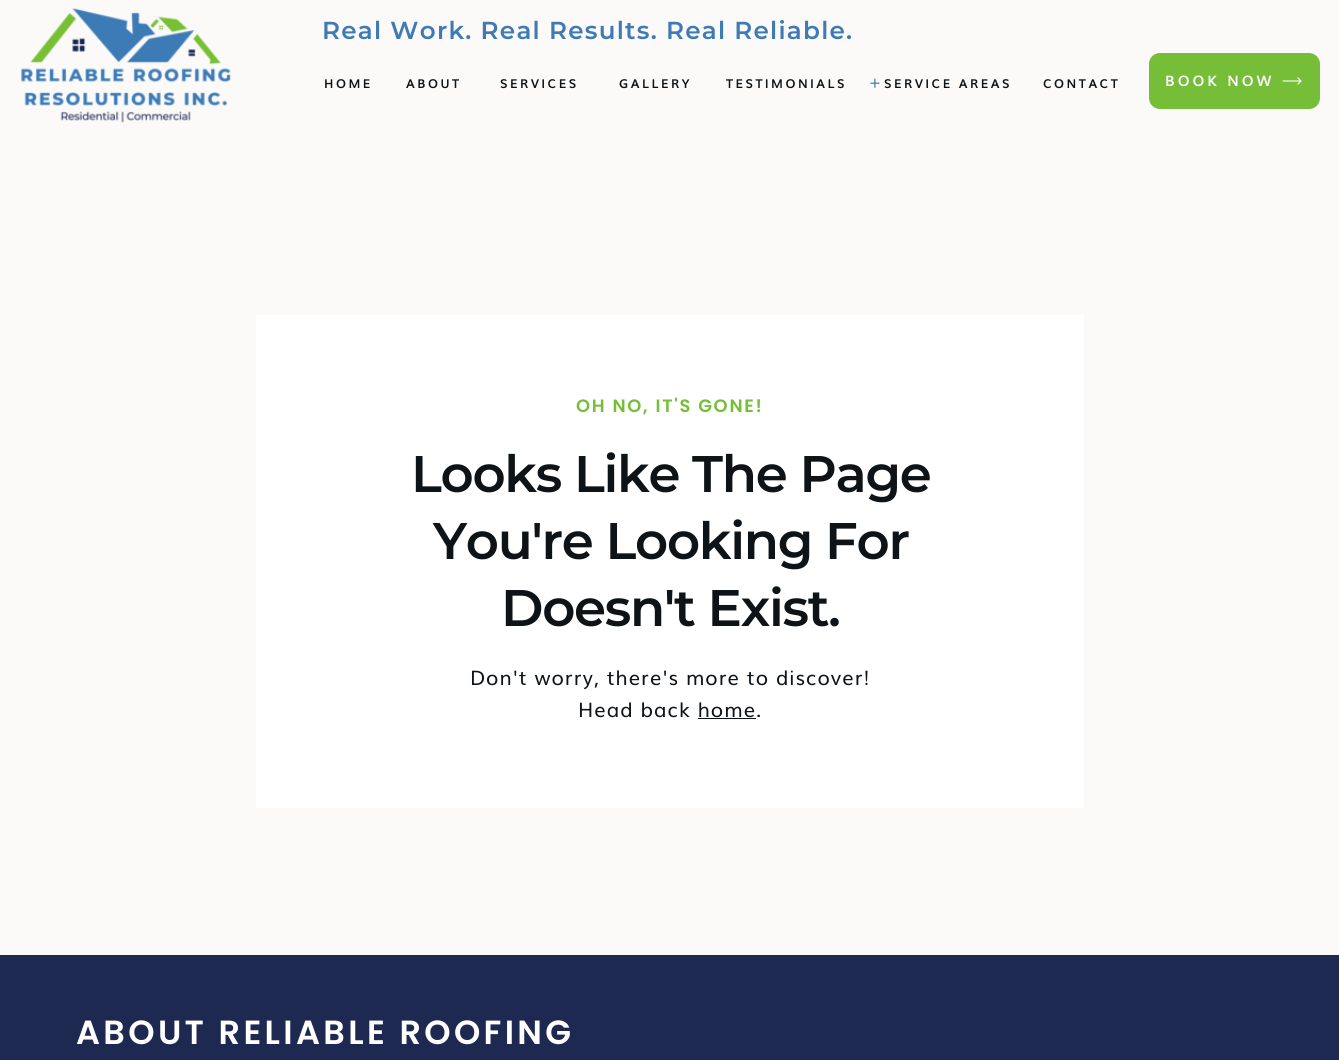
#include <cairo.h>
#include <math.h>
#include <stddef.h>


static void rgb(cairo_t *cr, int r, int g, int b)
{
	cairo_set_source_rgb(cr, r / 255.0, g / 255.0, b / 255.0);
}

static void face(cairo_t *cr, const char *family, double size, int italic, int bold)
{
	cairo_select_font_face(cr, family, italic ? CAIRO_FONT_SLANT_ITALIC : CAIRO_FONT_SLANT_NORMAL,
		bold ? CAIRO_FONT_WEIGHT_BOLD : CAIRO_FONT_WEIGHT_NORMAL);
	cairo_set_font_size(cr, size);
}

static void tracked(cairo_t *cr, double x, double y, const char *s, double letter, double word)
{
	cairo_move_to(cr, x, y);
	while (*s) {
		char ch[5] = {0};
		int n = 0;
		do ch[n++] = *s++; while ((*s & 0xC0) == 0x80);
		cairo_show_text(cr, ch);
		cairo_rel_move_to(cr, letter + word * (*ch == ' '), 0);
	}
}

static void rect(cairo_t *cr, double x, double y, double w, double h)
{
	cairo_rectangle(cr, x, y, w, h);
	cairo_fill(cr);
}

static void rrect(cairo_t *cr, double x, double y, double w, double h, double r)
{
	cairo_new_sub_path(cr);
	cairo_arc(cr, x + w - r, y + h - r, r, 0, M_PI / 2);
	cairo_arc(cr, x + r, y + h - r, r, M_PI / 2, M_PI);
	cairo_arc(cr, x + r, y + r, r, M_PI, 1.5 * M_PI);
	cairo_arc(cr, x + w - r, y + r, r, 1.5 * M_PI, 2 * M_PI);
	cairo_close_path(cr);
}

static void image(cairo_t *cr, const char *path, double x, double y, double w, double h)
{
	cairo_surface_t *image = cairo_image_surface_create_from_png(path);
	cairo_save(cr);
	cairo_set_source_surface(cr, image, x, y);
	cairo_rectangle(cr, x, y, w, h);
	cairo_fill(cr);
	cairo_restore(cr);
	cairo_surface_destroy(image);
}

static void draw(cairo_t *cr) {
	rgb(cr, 251, 250, 248);
	cairo_paint(cr);
	image(cr, "image0.png", 21, 7, 210, 116);
	face(cr, "Montserrat Thin", 24.6, 0, 0);
	rgb(cr, 62, 122, 181);
	tracked(cr, 322, 39, "Real Work. Real Results. Real Reliable.", 1.25, 0);
	rgb(cr, 118, 190, 55);
	rrect(cr, 1149, 53, 171, 56, 11);
	cairo_fill(cr);
	face(cr, "Muli", 12.25, 0, 1);
	rgb(cr, 13, 19, 23);
	tracked(cr, 324, 88, "HOME", 2.5, 0);
	tracked(cr, 406, 88, "ABOUT", 2.5, 0);
	tracked(cr, 500, 88, "SERVICES", 2.5, 0);
	tracked(cr, 619, 88, "GALLERY", 2.5, 0);
	tracked(cr, 726, 88, "TESTIMONIALS", 2.5, 0);
	image(cr, "image1.png", 870, 78, 10, 10);
	tracked(cr, 884, 88, "SERVICE AREAS", 2.5, 0);
	tracked(cr, 1043, 88, "CONTACT", 2.5, 0);
	face(cr, "Muli", 14.5, 0, 1);
	rgb(cr, 255, 255, 255);
	tracked(cr, 1165, 86, "BOOK NOW", 3, 0);
	image(cr, "image2.png", 1282, 77, 20, 8);
	rect(cr, 256, 315, 828, 493);
	face(cr, "Poppins SemiBold", 17.9, 0, 0);
	rgb(cr, 118, 190, 55);
	tracked(cr, 576, 412, "OH NO, IT'S GONE!", 1.75, 0);
	face(cr, "Montserrat Thin", 51.4, 0, 0);
	rgb(cr, 13, 19, 23);
	tracked(cr, 411, 492, "Looks Like The Page", -1.25, 0);
	tracked(cr, 433, 559, "You're Looking For", -1.25, 0);
	tracked(cr, 501, 626, "Doesn't Exist.", -1.25, 0);
	face(cr, "Muli", 20.1, 0, 0);
	tracked(cr, 470, 685, "Don't worry, there's more to discover!", 1, 0);
	tracked(cr, 578, 717, "Head back home.", 1, 0);
	rect(cr, 698, 718, 58, 1);
	rgb(cr, 30, 41, 82);
	rect(cr, 0, 955, 1339, 105);
	face(cr, "Poppins SemiBold", 33.5, 0, 0);
	rgb(cr, 255, 255, 255);
	tracked(cr, 76, 1044, "ABOUT RELIABLE ROOFING", 3.35, 0);
}

int main(void) {
	cairo_surface_t *surface = cairo_image_surface_create(CAIRO_FORMAT_RGB24, 1339, 1060);
	cairo_t *cr = cairo_create(surface);
	cairo_font_options_t *options = cairo_font_options_create();
	cairo_font_options_set_hint_metrics(options, CAIRO_HINT_METRICS_OFF);
	cairo_font_options_set_hint_style(options, CAIRO_HINT_STYLE_NONE);
	cairo_set_font_options(cr, options);
	cairo_set_miter_limit(cr, 4);
	draw(cr);
	cairo_surface_write_to_png(surface, "render.png");
	cairo_font_options_destroy(options);
	cairo_destroy(cr);
	cairo_surface_destroy(surface);
	return 0;
}
